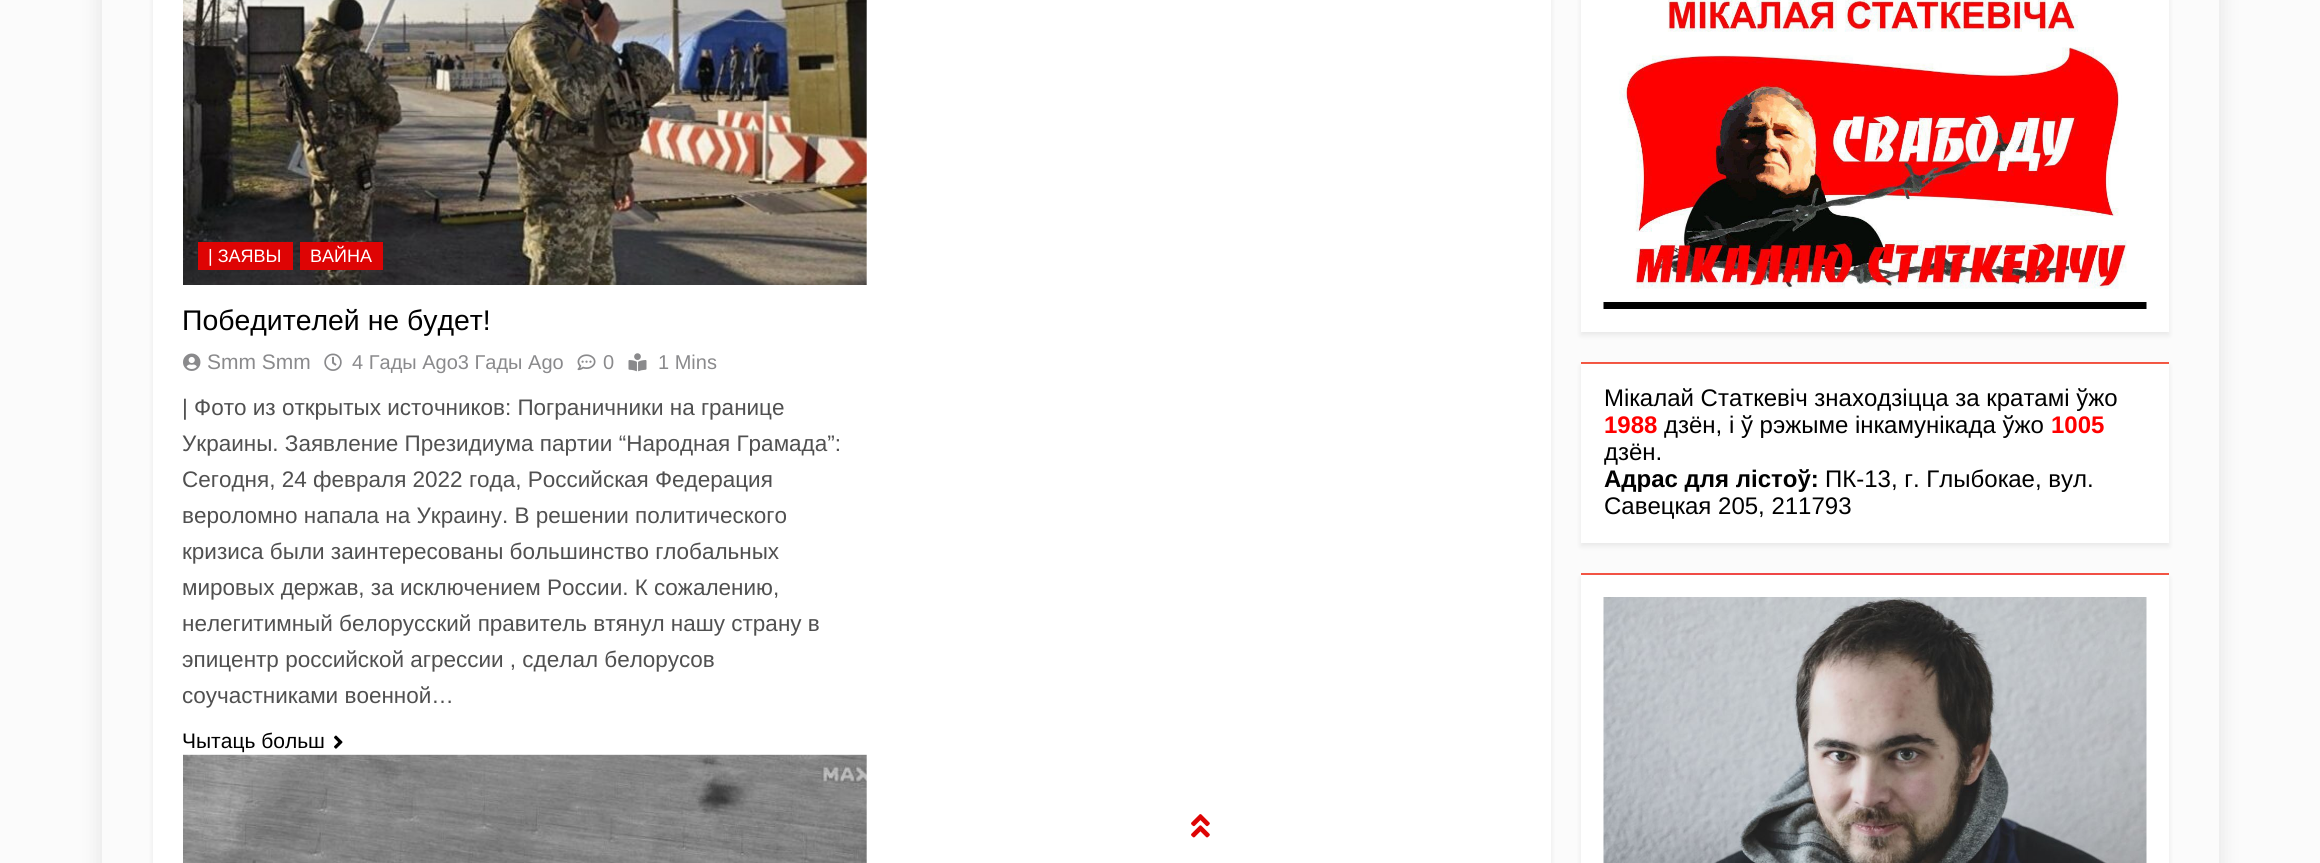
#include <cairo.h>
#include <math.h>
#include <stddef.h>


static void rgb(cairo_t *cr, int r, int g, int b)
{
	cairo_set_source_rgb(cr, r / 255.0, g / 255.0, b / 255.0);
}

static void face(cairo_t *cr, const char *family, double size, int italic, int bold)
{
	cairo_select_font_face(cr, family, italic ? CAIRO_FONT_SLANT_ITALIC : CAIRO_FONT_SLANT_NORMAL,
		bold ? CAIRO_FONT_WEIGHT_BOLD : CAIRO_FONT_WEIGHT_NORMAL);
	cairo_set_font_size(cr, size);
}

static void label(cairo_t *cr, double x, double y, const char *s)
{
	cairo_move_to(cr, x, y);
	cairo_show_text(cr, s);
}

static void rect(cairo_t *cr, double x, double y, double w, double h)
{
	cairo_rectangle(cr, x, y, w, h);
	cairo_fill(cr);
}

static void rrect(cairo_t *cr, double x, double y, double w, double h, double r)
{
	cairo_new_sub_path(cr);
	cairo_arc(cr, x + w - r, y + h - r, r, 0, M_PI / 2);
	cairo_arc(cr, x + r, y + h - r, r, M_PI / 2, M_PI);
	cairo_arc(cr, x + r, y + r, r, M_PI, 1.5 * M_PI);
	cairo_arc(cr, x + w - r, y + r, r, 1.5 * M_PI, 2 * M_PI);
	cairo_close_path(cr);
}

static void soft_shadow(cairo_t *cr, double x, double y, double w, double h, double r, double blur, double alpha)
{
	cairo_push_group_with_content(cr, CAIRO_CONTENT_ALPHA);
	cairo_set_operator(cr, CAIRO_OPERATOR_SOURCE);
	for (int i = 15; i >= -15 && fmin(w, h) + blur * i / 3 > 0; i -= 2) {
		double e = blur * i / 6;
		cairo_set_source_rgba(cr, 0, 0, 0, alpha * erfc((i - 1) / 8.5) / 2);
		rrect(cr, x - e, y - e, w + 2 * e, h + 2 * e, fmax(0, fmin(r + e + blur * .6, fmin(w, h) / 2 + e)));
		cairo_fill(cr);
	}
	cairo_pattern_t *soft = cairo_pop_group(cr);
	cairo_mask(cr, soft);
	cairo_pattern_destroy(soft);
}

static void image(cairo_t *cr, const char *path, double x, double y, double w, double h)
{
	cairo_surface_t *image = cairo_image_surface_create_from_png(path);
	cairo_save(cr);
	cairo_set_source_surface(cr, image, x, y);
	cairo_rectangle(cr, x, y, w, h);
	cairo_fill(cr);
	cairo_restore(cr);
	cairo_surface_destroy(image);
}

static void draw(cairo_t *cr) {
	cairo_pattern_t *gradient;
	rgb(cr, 251, 251, 251);
	cairo_paint(cr);
	cairo_save(cr);
	cairo_set_fill_rule(cr, CAIRO_FILL_RULE_EVEN_ODD);
	cairo_new_path(cr);
	cairo_move_to(cr, 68, 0);
	cairo_line_to(cr, 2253, 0);
	cairo_line_to(cr, 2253, 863);
	cairo_line_to(cr, 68, 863);
	cairo_close_path(cr);
	cairo_move_to(cr, 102, -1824);
	cairo_line_to(cr, 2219, -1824);
	cairo_line_to(cr, 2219, 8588);
	cairo_line_to(cr, 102, 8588);
	cairo_close_path(cr);
	cairo_clip(cr);
	rgb(cr, 0, 0, 0);
	soft_shadow(cr, 102, -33, 2117, 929, 0, 11, 0.1);
	cairo_restore(cr);
	rgb(cr, 0, 0, 0);
	soft_shadow(cr, 153, -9, 1398, 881, 0, 3, 0.08);
	rgb(cr, 255, 255, 255);
	rect(cr, 153, 0, 1398, 863);
	image(cr, "image0.png", 183, 0, 684, 285);
	rgb(cr, 222, 4, 4);
	rect(cr, 198, 242, 95, 28);
	face(cr, "Liberation Sans", 18, 0, 0);
	rgb(cr, 255, 255, 255);
	label(cr, 208, 262, "| ЗАЯВЫ");
	rgb(cr, 222, 4, 4);
	rect(cr, 300, 242, 83, 28);
	rgb(cr, 255, 255, 255);
	label(cr, 310, 262, "ВАЙНА");
	face(cr, "Liberation Sans", 28.4, 0, 0);
	rgb(cr, 0, 0, 0);
	label(cr, 182, 330, "Победителей не будет!");
	image(cr, "image1.png", 183, 353, 18, 18);
	face(cr, "Liberation Sans", 21, 0, 0);
	rgb(cr, 138, 138, 140);
	label(cr, 207, 369, "Smm Smm");
	image(cr, "image2.png", 324, 353, 18, 18);
	face(cr, "Liberation Sans", 20, 0, 0);
	label(cr, 352, 369, "4 Гады Ago3 Гады Ago");
	image(cr, "image3.png", 577, 354, 19, 17);
	label(cr, 603, 369, "0");
	image(cr, "image4.png", 628, 353, 19, 19);
	label(cr, 658, 369, "1 Mins");
	face(cr, "Liberation Sans", 22.5, 0, 0);
	rgb(cr, 80, 80, 80);
	label(cr, 182, 415, "| Фото из открытых источников: Пограничники на границе");
	label(cr, 182, 451, "Украины. Заявление Президиума партии “Народная Грамада”:");
	label(cr, 182, 487, "Сегодня, 24 февраля 2022 года, Российская Федерация");
	label(cr, 182, 523, "вероломно напала на Украину. В решении политического");
	label(cr, 182, 559, "кризиса были заинтересованы большинство глобальных");
	label(cr, 182, 595, "мировых держав, за исключением России. К сожалению,");
	label(cr, 182, 631, "нелегитимный белорусский правитель втянул нашу страну в");
	label(cr, 182, 667, "эпицентр российской агрессии , сделал белорусов");
	label(cr, 182, 703, "соучастниками военной…");
	face(cr, "Liberation Sans", 21, 0, 0);
	rgb(cr, 0, 0, 0);
	label(cr, 182, 748, "Чытаць больш");
	image(cr, "image5.png", 334, 735, 9, 14);
	image(cr, "image6.png", 183, 754, 684, 109);
	rgb(cr, 0, 0, 0);
	soft_shadow(cr, 1581, -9, 588, 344, 0, 3, 0.08);
	rgb(cr, 255, 255, 255);
	rect(cr, 1581, 0, 588, 332);
	image(cr, "image7.png", 1603, 0, 544, 309);
	rgb(cr, 0, 0, 0);
	soft_shadow(cr, 1581, 366, 588, 180, 0, 3, 0.08);
	rgb(cr, 255, 255, 255);
	rect(cr, 1581, 364, 588, 179);
	gradient = cairo_pattern_create_radial(0, 0, 0, 0, 0, 1);
	cairo_pattern_set_matrix(gradient, &(cairo_matrix_t){1.0 / 416, 0, 0, 1.0 / 1.1, -1.0 * 1875 / 416, -1.0 * 362 / 1.1});
	cairo_pattern_add_color_stop_rgba(gradient, 0.1, 0.922, 0.2, 0.286, 1);
	cairo_pattern_add_color_stop_rgba(gradient, 1, 0.957, 0.361, 0.263, 1);
	cairo_set_source(cr, gradient);
	cairo_pattern_destroy(gradient);
	rect(cr, 1581, 362, 588, 2);
	face(cr, "Liberation Sans", 24, 0, 0);
	rgb(cr, 0, 0, 0);
	label(cr, 1604, 406, "Мікалай Статкевіч знаходзіцца за кратамі ўжо");
	face(cr, "Liberation Sans", 24, 0, 1);
	rgb(cr, 255, 0, 0);
	label(cr, 1604, 433, "1988");
	face(cr, "Liberation Sans", 24, 0, 0);
	rgb(cr, 0, 0, 0);
	label(cr, 1664, 433, "дзён, і ў рэжыме інкамунікада ўжо");
	face(cr, "Liberation Sans", 24, 0, 1);
	rgb(cr, 255, 0, 0);
	label(cr, 2051, 433, "1005");
	face(cr, "Liberation Sans", 24, 0, 0);
	rgb(cr, 0, 0, 0);
	label(cr, 1604, 460, "дзён.");
	face(cr, "Liberation Sans", 24, 0, 1);
	label(cr, 1604, 487, "Адрас для лістоў:");
	face(cr, "Liberation Sans", 24, 0, 0);
	label(cr, 1825, 487, "ПК-13, г. Глыбокае, вул.");
	label(cr, 1604, 514, "Савецкая 205, 211793");
	rgb(cr, 0, 0, 0);
	soft_shadow(cr, 1581, 578, 588, 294, 0, 3, 0.08);
	rgb(cr, 255, 255, 255);
	rect(cr, 1581, 575, 588, 288);
	gradient = cairo_pattern_create_radial(0, 0, 0, 0, 0, 1);
	cairo_pattern_set_matrix(gradient, &(cairo_matrix_t){1.0 / 416, 0, 0, 1.0 / 1.1, -1.0 * 1875 / 416, -1.0 * 574 / 1.1});
	cairo_pattern_add_color_stop_rgba(gradient, 0.1, 0.922, 0.2, 0.286, 1);
	cairo_pattern_add_color_stop_rgba(gradient, 1, 0.957, 0.361, 0.263, 1);
	cairo_set_source(cr, gradient);
	cairo_pattern_destroy(gradient);
	rect(cr, 1581, 573, 588, 2);
	image(cr, "image8.png", 1603, 597, 544, 266);
	image(cr, "image9.png", 1191, 814, 19, 24);
}

int main(void) {
	cairo_surface_t *surface = cairo_image_surface_create(CAIRO_FORMAT_RGB24, 2320, 863);
	cairo_t *cr = cairo_create(surface);
	cairo_font_options_t *options = cairo_font_options_create();
	cairo_font_options_set_hint_metrics(options, CAIRO_HINT_METRICS_OFF);
	cairo_font_options_set_hint_style(options, CAIRO_HINT_STYLE_NONE);
	cairo_set_font_options(cr, options);
	cairo_set_miter_limit(cr, 4);
	draw(cr);
	cairo_surface_write_to_png(surface, "render.png");
	cairo_font_options_destroy(options);
	cairo_destroy(cr);
	cairo_surface_destroy(surface);
	return 0;
}
